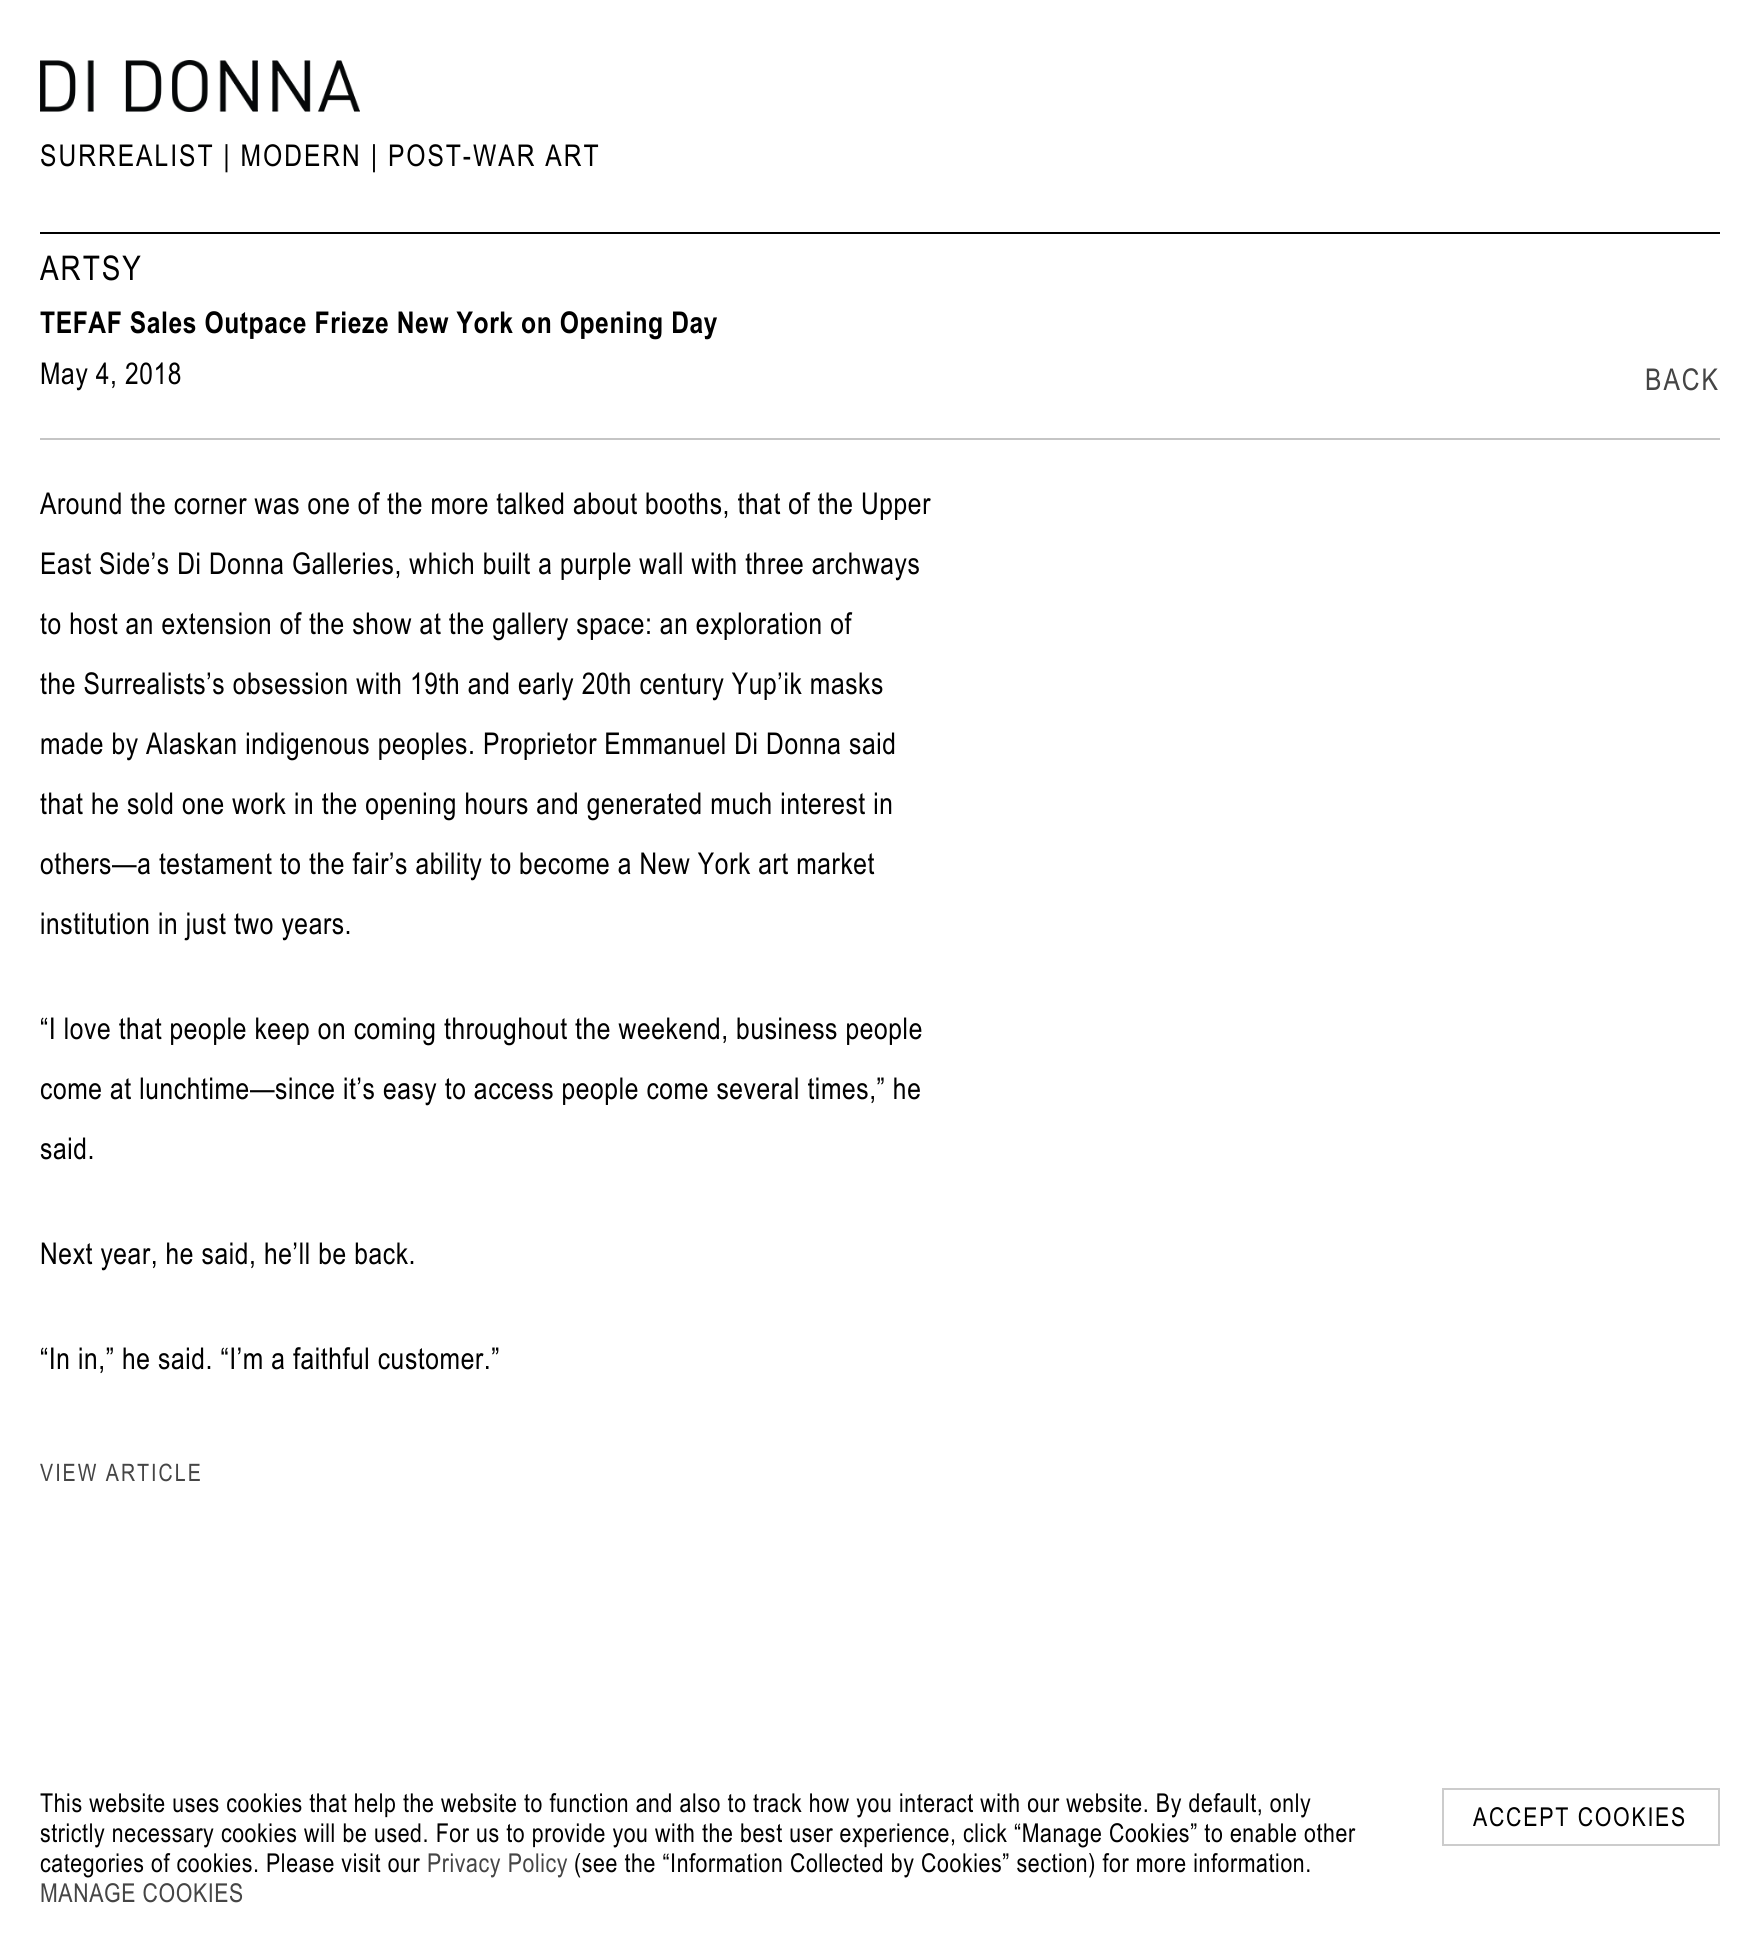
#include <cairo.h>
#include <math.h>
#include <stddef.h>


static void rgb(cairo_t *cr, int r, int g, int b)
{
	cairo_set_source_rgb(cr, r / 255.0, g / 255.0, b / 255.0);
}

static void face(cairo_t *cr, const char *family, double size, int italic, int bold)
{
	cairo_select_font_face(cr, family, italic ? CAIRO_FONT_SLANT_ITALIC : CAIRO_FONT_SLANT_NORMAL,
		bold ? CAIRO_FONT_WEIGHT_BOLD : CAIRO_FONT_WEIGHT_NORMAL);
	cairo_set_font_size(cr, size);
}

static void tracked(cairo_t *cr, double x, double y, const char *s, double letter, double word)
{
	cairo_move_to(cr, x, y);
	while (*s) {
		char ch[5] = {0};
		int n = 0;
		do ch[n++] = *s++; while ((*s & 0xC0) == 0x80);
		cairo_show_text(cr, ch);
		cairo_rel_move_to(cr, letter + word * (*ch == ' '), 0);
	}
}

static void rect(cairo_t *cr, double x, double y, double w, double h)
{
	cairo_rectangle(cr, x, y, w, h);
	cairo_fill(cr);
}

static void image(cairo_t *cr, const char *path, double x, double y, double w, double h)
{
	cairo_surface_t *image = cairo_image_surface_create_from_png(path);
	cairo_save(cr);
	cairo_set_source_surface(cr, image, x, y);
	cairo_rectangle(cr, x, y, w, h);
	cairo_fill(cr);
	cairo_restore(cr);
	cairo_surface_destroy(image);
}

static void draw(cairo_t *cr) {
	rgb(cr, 255, 255, 255);
	cairo_paint(cr);
	image(cr, "image0.png", 40, 60, 320, 52);
	face(cr, "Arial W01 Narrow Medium", 30, 0, 0);
	rgb(cr, 0, 0, 0);
	tracked(cr, 40, 166, "SURREALIST | MODERN | POST-WAR ART", 2, 0);
	rect(cr, 40, 232, 1680, 2);
	rgb(cr, 197, 197, 197);
	rect(cr, 40, 438, 1680, 2);
	face(cr, "Arial W01 Narrow Medium", 34, 0, 0);
	rgb(cr, 0, 0, 0);
	tracked(cr, 40, 280, "ARTSY", 2, 0);
	face(cr, "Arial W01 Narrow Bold", 30, 0, 1);
	tracked(cr, 40, 333, "TEFAF Sales Outpace Frieze New York on Opening Day", 0.6, 0);
	face(cr, "Arial W01 Narrow Medium", 30, 0, 0);
	tracked(cr, 40, 384, "May 4, 2018", 0.6, 0);
	rgb(cr, 69, 69, 69);
	tracked(cr, 1645, 390, "BACK", 2, 0);
	rgb(cr, 0, 0, 0);
	tracked(cr, 40, 514, "Around the corner was one of the more talked about booths, that of the Upper", 0.6, 0);
	tracked(cr, 40, 574, "East Side’s Di Donna Galleries, which built a purple wall with three archways", 0.6, 0);
	tracked(cr, 40, 634, "to host an extension of the show at the gallery space: an exploration of", 0.6, 0);
	tracked(cr, 40, 694, "the Surrealists’s obsession with 19th and early 20th century Yup’ik masks", 0.6, 0);
	tracked(cr, 40, 754, "made by Alaskan indigenous peoples. Proprietor Emmanuel Di Donna said", 0.6, 0);
	tracked(cr, 40, 814, "that he sold one work in the opening hours and generated much interest in", 0.6, 0);
	tracked(cr, 40, 874, "others—a testament to the fair’s ability to become a New York art market", 0.6, 0);
	tracked(cr, 40, 934, "institution in just two years.", 0.6, 0);
	tracked(cr, 40, 1039, "“I love that people keep on coming throughout the weekend, business people", 0.6, 0);
	tracked(cr, 40, 1099, "come at lunchtime—since it’s easy to access people come several times,” he", 0.6, 0);
	tracked(cr, 40, 1159, "said.", 0.6, 0);
	tracked(cr, 40, 1264, "Next year, he said, he’ll be back.", 0.6, 0);
	tracked(cr, 40, 1369, "“In in,” he said. “I’m a faithful customer.”", 0.6, 0);
	face(cr, "Arial W01 Narrow Medium", 24, 0, 0);
	rgb(cr, 69, 69, 69);
	tracked(cr, 40, 1481, "VIEW ARTICLE", 2, 0);
	face(cr, "Arial W01 Narrow Medium", 26, 0, 0);
	rgb(cr, 0, 0, 0);
	tracked(cr, 40, 1812, "This website uses cookies that help the website to function and also to track how you interact with our website. By default, only", 0.6, 0);
	tracked(cr, 40, 1842, "strictly necessary cookies will be used. For us to provide you with the best user experience, click “Manage Cookies” to enable other", 0.6, 0);
	tracked(cr, 40, 1872, "categories of cookies. Please visit our", 0.6, 0);
	rgb(cr, 69, 69, 69);
	tracked(cr, 427, 1872, "Privacy Policy", 0.6, 0);
	rgb(cr, 0, 0, 0);
	tracked(cr, 574, 1872, "(see the “Information Collected by Cookies” section) for more information.", 0.6, 0);
	rgb(cr, 69, 69, 69);
	tracked(cr, 40, 1902, "MANAGE COOKIES", 0.6, 0);
	cairo_rectangle(cr, 1443, 1789, 276, 56);
	rgb(cr, 204, 204, 204);
	cairo_stroke(cr);
	rgb(cr, 0, 0, 0);
	tracked(cr, 1473, 1826, "ACCEPT COOKIES", 1.75, 0);
}

int main(void) {
	cairo_surface_t *surface = cairo_image_surface_create(CAIRO_FORMAT_RGB24, 1760, 1947);
	cairo_t *cr = cairo_create(surface);
	cairo_font_options_t *options = cairo_font_options_create();
	cairo_font_options_set_hint_metrics(options, CAIRO_HINT_METRICS_OFF);
	cairo_font_options_set_hint_style(options, CAIRO_HINT_STYLE_NONE);
	cairo_set_font_options(cr, options);
	cairo_set_miter_limit(cr, 4);
	draw(cr);
	cairo_surface_write_to_png(surface, "render.png");
	cairo_font_options_destroy(options);
	cairo_destroy(cr);
	cairo_surface_destroy(surface);
	return 0;
}
